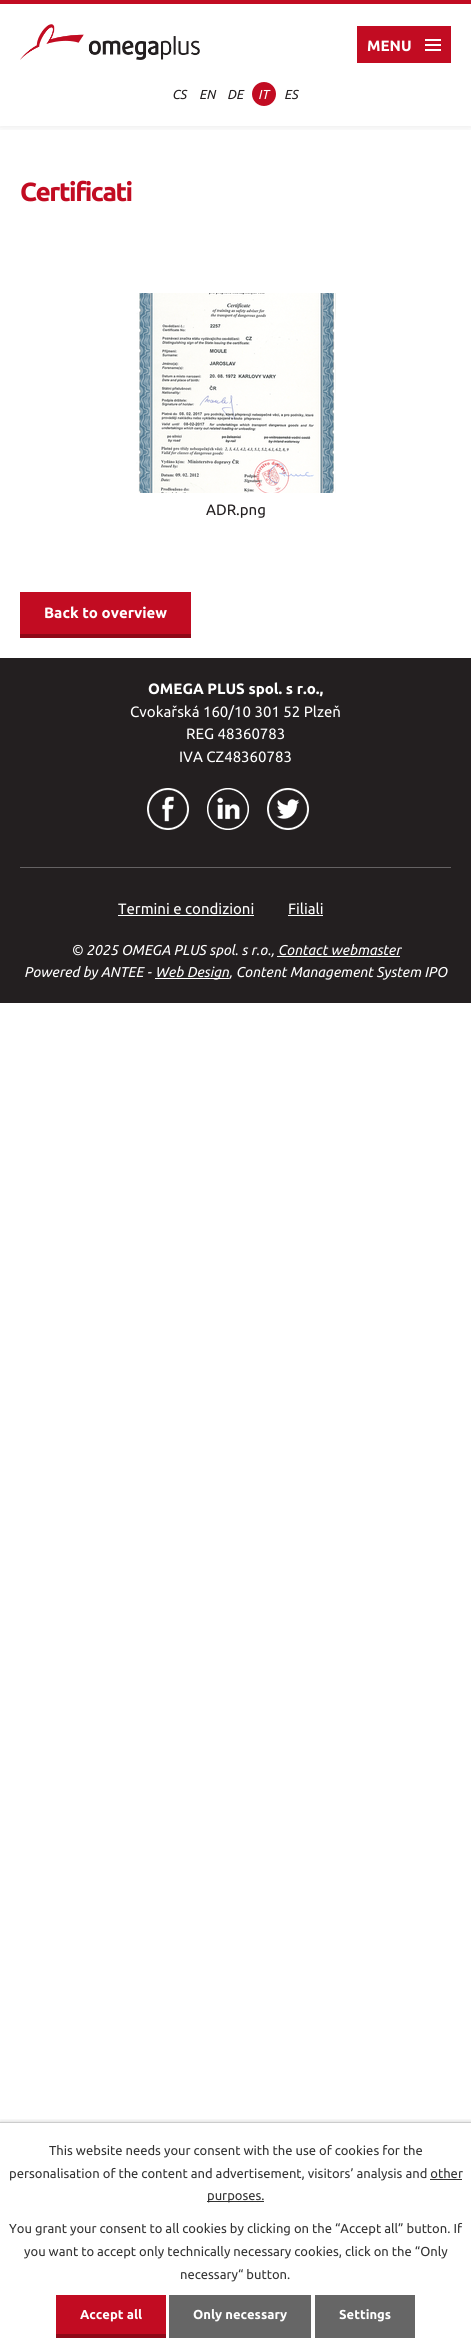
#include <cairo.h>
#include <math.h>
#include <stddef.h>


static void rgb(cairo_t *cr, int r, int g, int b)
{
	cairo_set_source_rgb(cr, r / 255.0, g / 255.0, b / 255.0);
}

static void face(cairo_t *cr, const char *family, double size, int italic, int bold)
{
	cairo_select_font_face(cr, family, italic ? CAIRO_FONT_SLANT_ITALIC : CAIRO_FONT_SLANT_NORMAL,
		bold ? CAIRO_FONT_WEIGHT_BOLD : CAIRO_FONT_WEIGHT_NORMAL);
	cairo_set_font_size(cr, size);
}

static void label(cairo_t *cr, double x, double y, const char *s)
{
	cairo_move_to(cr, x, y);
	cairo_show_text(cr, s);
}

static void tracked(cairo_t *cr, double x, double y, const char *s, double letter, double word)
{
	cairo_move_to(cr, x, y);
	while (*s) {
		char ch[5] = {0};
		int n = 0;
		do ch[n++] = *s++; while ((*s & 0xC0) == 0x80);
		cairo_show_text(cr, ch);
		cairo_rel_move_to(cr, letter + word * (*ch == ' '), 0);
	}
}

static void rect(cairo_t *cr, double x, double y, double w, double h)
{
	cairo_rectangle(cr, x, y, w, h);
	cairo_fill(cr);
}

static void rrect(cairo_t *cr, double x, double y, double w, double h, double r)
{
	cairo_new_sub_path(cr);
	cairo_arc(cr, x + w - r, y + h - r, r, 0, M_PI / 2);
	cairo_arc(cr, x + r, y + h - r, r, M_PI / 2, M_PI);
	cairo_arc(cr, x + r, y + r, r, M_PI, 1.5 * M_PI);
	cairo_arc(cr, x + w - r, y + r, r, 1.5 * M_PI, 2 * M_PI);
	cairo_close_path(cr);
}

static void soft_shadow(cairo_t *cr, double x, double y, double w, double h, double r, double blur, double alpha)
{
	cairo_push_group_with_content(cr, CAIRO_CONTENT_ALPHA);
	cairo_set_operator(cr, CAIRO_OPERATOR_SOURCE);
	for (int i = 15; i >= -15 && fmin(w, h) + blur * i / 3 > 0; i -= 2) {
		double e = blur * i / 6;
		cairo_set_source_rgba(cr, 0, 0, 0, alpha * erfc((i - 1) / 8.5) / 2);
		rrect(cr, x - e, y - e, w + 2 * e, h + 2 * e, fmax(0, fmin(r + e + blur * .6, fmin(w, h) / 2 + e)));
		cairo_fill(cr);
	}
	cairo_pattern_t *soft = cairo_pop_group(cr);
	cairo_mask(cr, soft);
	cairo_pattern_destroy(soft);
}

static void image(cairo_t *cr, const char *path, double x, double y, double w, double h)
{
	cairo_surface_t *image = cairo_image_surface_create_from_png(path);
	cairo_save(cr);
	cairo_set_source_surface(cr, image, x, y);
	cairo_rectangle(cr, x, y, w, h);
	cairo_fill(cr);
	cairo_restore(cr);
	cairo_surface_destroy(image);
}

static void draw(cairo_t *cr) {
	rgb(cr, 255, 255, 255);
	cairo_paint(cr);
	cairo_save(cr);
	cairo_rectangle(cr, 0, 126, 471, 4);
	cairo_clip(cr);
	rgb(cr, 0, 0, 0);
	soft_shadow(cr, 0, 0, 471, 126, 0, 5, 0.1);
	cairo_restore(cr);
	rgb(cr, 194, 12, 34);
	rect(cr, 357, 26, 94, 37);
	face(cr, "Ubuntu", 15, 0, 1);
	rgb(cr, 255, 255, 255);
	label(cr, 367, 51, "MENU");
	image(cr, "image0.png", 425, 39, 16, 12);
	rgb(cr, 194, 12, 34);
	rect(cr, 0, 0, 471, 4);
	image(cr, "image1.png", 20, 24, 180, 36);
	face(cr, "Ubuntu", 13, 1, 0);
	rgb(cr, 35, 31, 32);
	label(cr, 172, 99, "CS");
	label(cr, 199, 99, "EN");
	label(cr, 227, 99, "DE");
	rgb(cr, 194, 12, 34);
	cairo_new_path(cr);
	cairo_arc(cr, 264, 94, 12, 0, 2 * M_PI);
	cairo_fill(cr);
	rgb(cr, 255, 255, 255);
	label(cr, 258, 99, "IT");
	rgb(cr, 35, 31, 32);
	label(cr, 284, 99, "ES");
	face(cr, "Ubuntu", 26.25, 0, 1);
	rgb(cr, 194, 12, 34);
	tracked(cr, 20, 201, "Certificati", -1.5, 0);
	image(cr, "image2.png", 136, 293, 200, 200);
	face(cr, "Ubuntu", 15, 0, 0);
	rgb(cr, 35, 31, 32);
	label(cr, 206, 515, "ADR.png");
	rgb(cr, 194, 12, 34);
	rect(cr, 20, 592, 171, 42);
	rgb(cr, 143, 9, 24);
	rect(cr, 20, 634, 171, 4);
	face(cr, "Ubuntu", 15, 0, 1);
	rgb(cr, 255, 255, 255);
	label(cr, 44, 618, "Back to overview");
	rgb(cr, 35, 31, 32);
	rect(cr, 0, 658, 471, 345);
	rgb(cr, 255, 255, 255);
	label(cr, 148, 694, "OMEGA PLUS spol. s r.o.,");
	face(cr, "Ubuntu", 15, 0, 0);
	label(cr, 130, 717, "Cvokařská 160/10 301 52 Plzeň");
	label(cr, 186, 739, "REG 48360783");
	label(cr, 179, 762, "IVA CZ48360783");
	image(cr, "image3.png", 147, 788, 42, 42);
	image(cr, "image4.png", 207, 788, 42, 42);
	image(cr, "image5.png", 267, 788, 42, 42);
	rgb(cr, 101, 98, 99);
	rect(cr, 20, 867, 431, 1);
	rgb(cr, 255, 255, 255);
	label(cr, 118, 914, "Termini e condizioni");
	rect(cr, 118, 915, 136, 1);
	label(cr, 288, 914, "Filiali");
	rect(cr, 288, 915, 35, 1);
	face(cr, "Ubuntu", 14.25, 1, 0);
	label(cr, 71, 955, "© 2025 OMEGA PLUS spol. s r.o., Contact webmaster");
	rect(cr, 277, 956, 123, 1);
	label(cr, 24, 977, "Powered by ANTEE -");
	rect(cr, 155, 978, 74, 1);
	label(cr, 155, 977, "Web Design, Content Management System IPO");
	cairo_save(cr);
	cairo_rectangle(cr, 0, 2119, 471, 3);
	cairo_clip(cr);
	rgb(cr, 0, 0, 0);
	soft_shadow(cr, 0, 2122, 471, 222, 0, 2.5, 0.2);
	cairo_restore(cr);
	rgb(cr, 204, 204, 204);
	rect(cr, 0, 2122, 471, 1);
	face(cr, "Ubuntu", 13, 0, 0);
	rgb(cr, 51, 51, 51);
	label(cr, 49, 2155, "This website needs your consent with the use of cookies for the");
	label(cr, 9, 2178, "personalisation of the content and advertisement, visitors’ analysis and other");
	rect(cr, 207, 2201, 57, 1);
	label(cr, 207, 2200, "purposes.");
	rect(cr, 430, 2179, 32, 1);
	label(cr, 9, 2233, "You grant your consent to all cookies by clicking on the “Accept all” button. If");
	label(cr, 24, 2256, "you want to accept only technically necessary cookies, click on the “Only");
	label(cr, 180, 2279, "necessary“ button.");
	rgb(cr, 194, 12, 34);
	rect(cr, 56, 2295, 110, 39);
	rgb(cr, 143, 9, 24);
	rect(cr, 56, 2334, 110, 4);
	face(cr, "Ubuntu", 13, 0, 1);
	rgb(cr, 255, 255, 255);
	label(cr, 80, 2319, "Accept all");
	rgb(cr, 102, 102, 102);
	rect(cr, 169, 2295, 142, 43);
	rgb(cr, 255, 255, 255);
	label(cr, 193, 2319, "Only necessary");
	rgb(cr, 102, 102, 102);
	rect(cr, 315, 2295, 100, 43);
	rgb(cr, 255, 255, 255);
	label(cr, 339, 2319, "Settings");
}

int main(void) {
	cairo_surface_t *surface = cairo_image_surface_create(CAIRO_FORMAT_RGB24, 471, 2344);
	cairo_t *cr = cairo_create(surface);
	cairo_font_options_t *options = cairo_font_options_create();
	cairo_font_options_set_hint_metrics(options, CAIRO_HINT_METRICS_OFF);
	cairo_font_options_set_hint_style(options, CAIRO_HINT_STYLE_NONE);
	cairo_set_font_options(cr, options);
	cairo_set_miter_limit(cr, 4);
	draw(cr);
	cairo_surface_write_to_png(surface, "render.png");
	cairo_font_options_destroy(options);
	cairo_destroy(cr);
	cairo_surface_destroy(surface);
	return 0;
}
